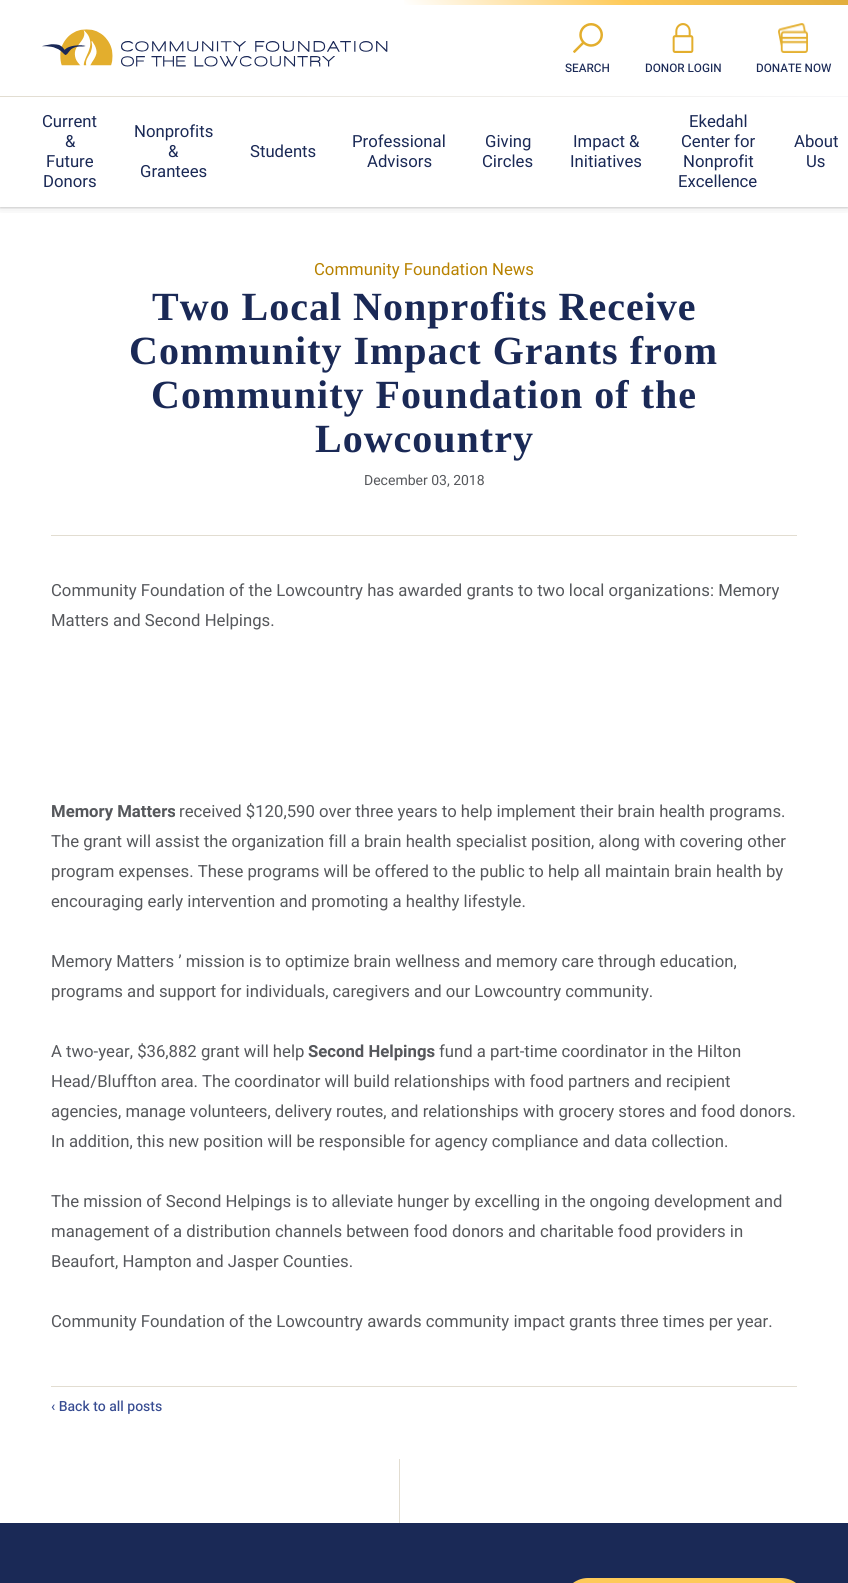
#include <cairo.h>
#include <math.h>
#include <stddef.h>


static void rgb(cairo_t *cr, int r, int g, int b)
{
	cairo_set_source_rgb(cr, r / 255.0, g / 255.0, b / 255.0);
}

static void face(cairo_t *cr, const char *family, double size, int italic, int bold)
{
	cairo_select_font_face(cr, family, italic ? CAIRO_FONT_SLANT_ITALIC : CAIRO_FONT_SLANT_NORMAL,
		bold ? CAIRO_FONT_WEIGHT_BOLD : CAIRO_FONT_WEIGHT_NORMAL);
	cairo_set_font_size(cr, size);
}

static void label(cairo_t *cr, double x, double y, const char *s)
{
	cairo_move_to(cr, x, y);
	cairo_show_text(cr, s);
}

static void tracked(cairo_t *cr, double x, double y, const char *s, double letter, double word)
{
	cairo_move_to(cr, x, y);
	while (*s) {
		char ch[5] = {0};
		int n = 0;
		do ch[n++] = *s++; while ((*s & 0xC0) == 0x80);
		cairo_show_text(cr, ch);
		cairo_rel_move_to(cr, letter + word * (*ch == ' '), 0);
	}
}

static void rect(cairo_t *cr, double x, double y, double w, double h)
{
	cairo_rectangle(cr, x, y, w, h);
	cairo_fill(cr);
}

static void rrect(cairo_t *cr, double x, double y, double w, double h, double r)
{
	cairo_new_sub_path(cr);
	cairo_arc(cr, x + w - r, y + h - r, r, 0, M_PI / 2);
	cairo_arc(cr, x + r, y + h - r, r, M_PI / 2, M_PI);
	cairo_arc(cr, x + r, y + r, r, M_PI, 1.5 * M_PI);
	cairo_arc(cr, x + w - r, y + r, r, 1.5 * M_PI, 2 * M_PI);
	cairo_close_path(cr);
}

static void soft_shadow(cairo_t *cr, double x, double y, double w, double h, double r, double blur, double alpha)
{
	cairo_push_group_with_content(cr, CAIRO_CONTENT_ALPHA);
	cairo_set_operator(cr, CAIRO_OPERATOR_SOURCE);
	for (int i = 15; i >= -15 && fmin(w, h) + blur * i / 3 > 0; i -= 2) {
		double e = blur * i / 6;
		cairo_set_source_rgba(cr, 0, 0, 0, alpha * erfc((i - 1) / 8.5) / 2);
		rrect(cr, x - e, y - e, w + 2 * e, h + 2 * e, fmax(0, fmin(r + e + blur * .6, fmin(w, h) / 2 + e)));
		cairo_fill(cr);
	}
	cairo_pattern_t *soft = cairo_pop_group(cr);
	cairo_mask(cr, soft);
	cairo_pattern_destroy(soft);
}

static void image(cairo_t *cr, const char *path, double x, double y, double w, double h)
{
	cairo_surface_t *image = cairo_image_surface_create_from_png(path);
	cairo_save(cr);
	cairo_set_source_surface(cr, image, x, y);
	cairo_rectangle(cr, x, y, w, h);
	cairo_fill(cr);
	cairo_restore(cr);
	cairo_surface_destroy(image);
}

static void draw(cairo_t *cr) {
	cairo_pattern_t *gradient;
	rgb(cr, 255, 255, 255);
	cairo_paint(cr);
	cairo_save(cr);
	cairo_rectangle(cr, 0, 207, 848, 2);
	cairo_clip(cr);
	rgb(cr, 0, 0, 0);
	soft_shadow(cr, 0, 1, 848, 207, 0, 1, 0.15);
	cairo_restore(cr);
	cairo_save(cr);
	cairo_rectangle(cr, 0, 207, 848, 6);
	cairo_clip(cr);
	rgb(cr, 0, 0, 0);
	soft_shadow(cr, 0, 1, 848, 207, 0, 6, 0.1);
	cairo_restore(cr);
	image(cr, "image0.png", 42, 29, 346, 38);
	gradient = cairo_pattern_create_linear(514, 115, 738, -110);
	cairo_pattern_add_color_stop_rgba(gradient, 0, 1, 1, 1, 1);
	cairo_pattern_add_color_stop_rgba(gradient, 0.5, 0.996, 0.792, 0.349, 1);
	cairo_pattern_add_color_stop_rgba(gradient, 1, 0.886, 0.678, 0.235, 1);
	cairo_set_source(cr, gradient);
	cairo_pattern_destroy(gradient);
	rect(cr, 404, 0, 444, 5);
	image(cr, "image1.png", 573, 23, 30, 30);
	face(cr, "Heebo Medium", 11.75, 0, 0);
	rgb(cr, 26, 41, 86);
	label(cr, 565, 72, "SEARCH");
	image(cr, "image2.png", 672, 23, 22, 30);
	label(cr, 645, 72, "DONOR LOGIN");
	image(cr, "image3.png", 778, 23, 30, 30);
	label(cr, 756, 72, "DONATE NOW");
	gradient = cairo_pattern_create_linear(212, 309, 636, -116);
	cairo_pattern_add_color_stop_rgba(gradient, 0, 0.886, 0.867, 0.82, 1);
	cairo_pattern_add_color_stop_rgba(gradient, 1, 0.969, 0.969, 0.976, 1);
	cairo_set_source(cr, gradient);
	cairo_pattern_destroy(gradient);
	rect(cr, 0, 96, 848, 1);
	face(cr, "Heebo", 16.7, 0, 0);
	rgb(cr, 26, 41, 86);
	label(cr, 42, 127, "Current");
	label(cr, 65, 147, "&");
	label(cr, 46, 167, "Future");
	label(cr, 43, 187, "Donors");
	label(cr, 134, 137, "Nonprofits");
	label(cr, 168, 157, "&");
	label(cr, 140, 177, "Grantees");
	label(cr, 250, 157, "Students");
	label(cr, 352, 147, "Professional");
	label(cr, 367, 167, "Advisors");
	label(cr, 485, 147, "Giving");
	label(cr, 482, 167, "Circles");
	label(cr, 573, 147, "Impact &");
	label(cr, 570, 167, "Initiatives");
	label(cr, 689, 127, "Ekedahl");
	label(cr, 681, 147, "Center for");
	label(cr, 683, 167, "Nonprofit");
	label(cr, 678, 187, "Excellence");
	label(cr, 794, 147, "About");
	label(cr, 806, 167, "Us");
	rgb(cr, 226, 221, 209);
	rect(cr, 51, 535, 746, 1);
	rgb(cr, 184, 130, 0);
	label(cr, 314, 275, "Community Foundation News");
	face(cr, "Tinos", 40, 0, 1);
	rgb(cr, 26, 41, 86);
	tracked(cr, 152, 320, "Two Local Nonprofits Receive", 1, 0);
	tracked(cr, 129, 364, "Community Impact Grants from", 1, 0);
	tracked(cr, 151, 408, "Community Foundation of the", 1, 0);
	tracked(cr, 315, 452, "Lowcountry", 1, 0);
	face(cr, "Heebo", 14, 0, 0);
	rgb(cr, 86, 88, 92);
	label(cr, 364, 485, "December 03, 2018");
	face(cr, "Heebo", 16.7, 0, 0);
	label(cr, 51, 596, "Community Foundation of the Lowcountry has awarded grants to two local organizations: Memory");
	label(cr, 51, 626, "Matters and Second Helpings.");
	face(cr, "Heebo", 16.7, 0, 1);
	label(cr, 51, 817, "Memory Matters");
	face(cr, "Heebo", 16.7, 0, 0);
	label(cr, 179, 817, "received $120,590 over three years to help implement their brain health programs.");
	label(cr, 51, 847, "The grant will assist the organization fill a brain health specialist position, along with covering other");
	label(cr, 51, 877, "program expenses. These programs will be offered to the public to help all maintain brain health by");
	label(cr, 51, 907, "encouraging early intervention and promoting a healthy lifestyle.");
	label(cr, 51, 967, "Memory Matters ’ mission is to optimize brain wellness and memory care through education,");
	label(cr, 51, 997, "programs and support for individuals, caregivers and our Lowcountry community.");
	label(cr, 51, 1057, "A two-year, $36,882 grant will help");
	face(cr, "Heebo", 16.7, 0, 1);
	label(cr, 308, 1057, "Second Helpings");
	face(cr, "Heebo", 16.7, 0, 0);
	label(cr, 439, 1057, "fund a part-time coordinator in the Hilton");
	label(cr, 51, 1087, "Head/Bluffton area. The coordinator will build relationships with food partners and recipient");
	label(cr, 51, 1117, "agencies, manage volunteers, delivery routes, and relationships with grocery stores and food donors.");
	label(cr, 51, 1147, "In addition, this new position will be responsible for agency compliance and data collection.");
	label(cr, 51, 1207, "The mission of Second Helpings is to alleviate hunger by excelling in the ongoing development and");
	label(cr, 51, 1237, "management of a distribution channels between food donors and charitable food providers in");
	label(cr, 51, 1267, "Beaufort, Hampton and Jasper Counties.");
	label(cr, 51, 1327, "Community Foundation of the Lowcountry awards community impact grants three times per year.");
	rgb(cr, 226, 221, 209);
	rect(cr, 51, 1386, 746, 1);
	face(cr, "Heebo Medium", 14, 0, 0);
	rgb(cr, 54, 75, 145);
	label(cr, 51, 1411, "‹ Back to all posts");
	rgb(cr, 226, 221, 209);
	rect(cr, 399, 1459, 1, 64);
	rgb(cr, 26, 41, 86);
	rect(cr, 0, 1523, 848, 60);
	rgb(cr, 254, 202, 89);
	rrect(cr, 563, 1578, 243, 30, 25);
	cairo_fill(cr);
}

int main(void) {
	cairo_surface_t *surface = cairo_image_surface_create(CAIRO_FORMAT_RGB24, 848, 1583);
	cairo_t *cr = cairo_create(surface);
	cairo_font_options_t *options = cairo_font_options_create();
	cairo_font_options_set_hint_metrics(options, CAIRO_HINT_METRICS_OFF);
	cairo_font_options_set_hint_style(options, CAIRO_HINT_STYLE_NONE);
	cairo_set_font_options(cr, options);
	cairo_set_miter_limit(cr, 4);
	draw(cr);
	cairo_surface_write_to_png(surface, "render.png");
	cairo_font_options_destroy(options);
	cairo_destroy(cr);
	cairo_surface_destroy(surface);
	return 0;
}
